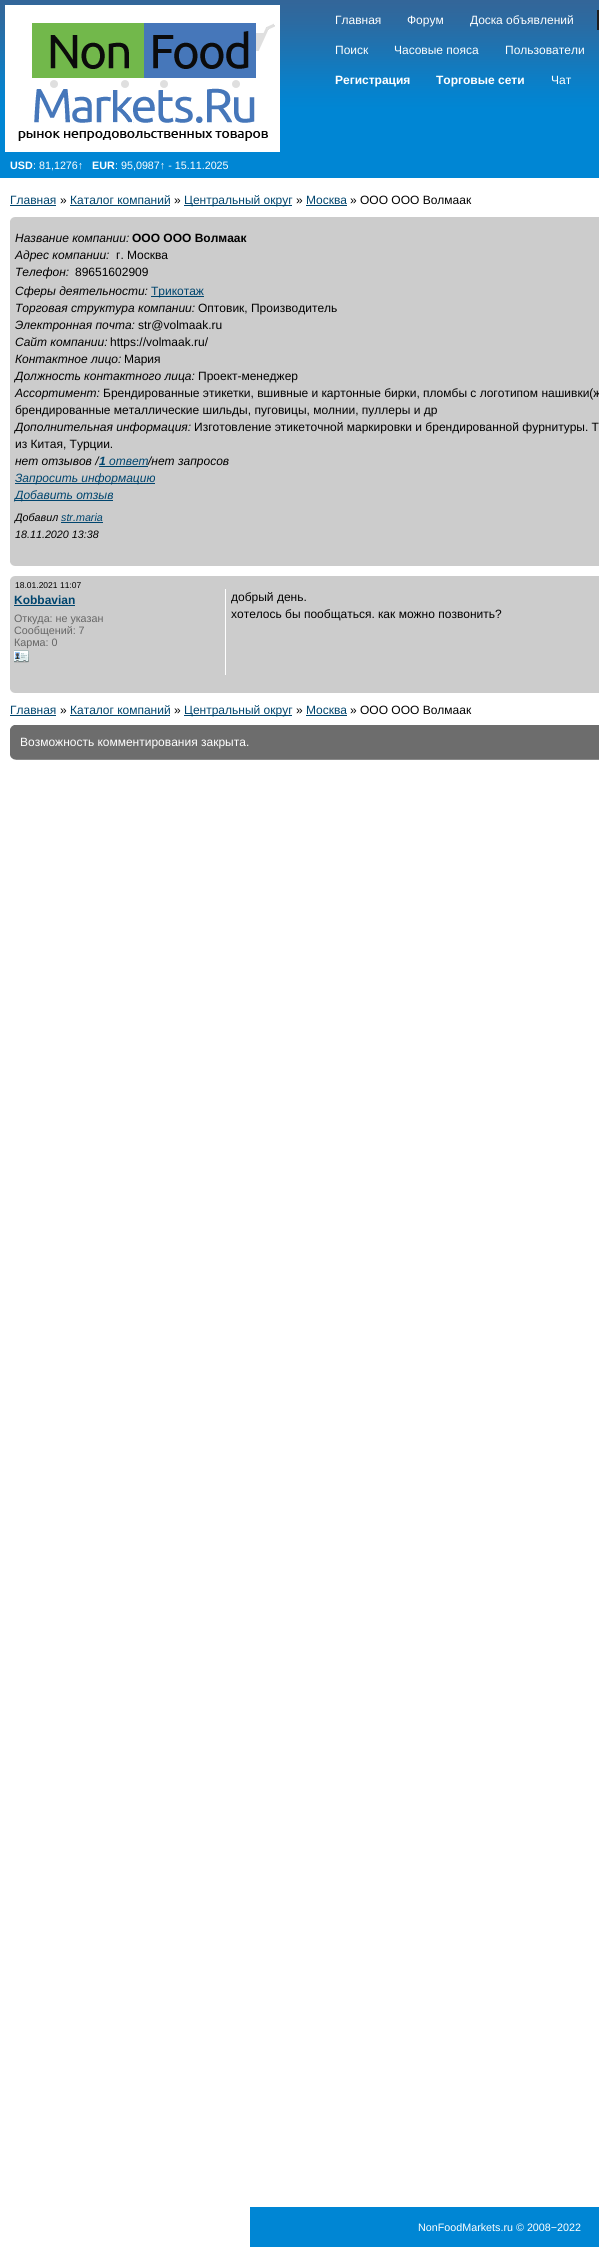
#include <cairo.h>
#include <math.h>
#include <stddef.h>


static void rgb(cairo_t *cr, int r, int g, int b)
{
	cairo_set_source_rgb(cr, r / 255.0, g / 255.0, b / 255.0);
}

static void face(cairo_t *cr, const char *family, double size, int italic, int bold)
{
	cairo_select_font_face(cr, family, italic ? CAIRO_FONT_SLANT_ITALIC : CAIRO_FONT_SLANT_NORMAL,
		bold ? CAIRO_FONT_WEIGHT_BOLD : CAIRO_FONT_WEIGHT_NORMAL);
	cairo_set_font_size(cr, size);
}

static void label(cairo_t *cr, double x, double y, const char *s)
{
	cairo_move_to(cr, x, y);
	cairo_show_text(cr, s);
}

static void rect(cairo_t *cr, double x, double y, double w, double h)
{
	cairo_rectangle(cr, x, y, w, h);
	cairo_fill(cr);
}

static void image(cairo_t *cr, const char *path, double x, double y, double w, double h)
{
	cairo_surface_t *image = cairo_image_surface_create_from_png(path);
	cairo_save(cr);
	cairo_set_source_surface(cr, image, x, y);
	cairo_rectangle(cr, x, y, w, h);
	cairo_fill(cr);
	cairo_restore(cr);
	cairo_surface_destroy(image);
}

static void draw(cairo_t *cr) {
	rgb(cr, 255, 255, 255);
	cairo_paint(cr);
	image(cr, "image0.png", 0, 0, 599, 161);
	rgb(cr, 255, 255, 255);
	rect(cr, 5, 5, 275, 147);
	image(cr, "image1.png", 18, 23, 257, 118);
	face(cr, "Liberation Sans", 12, 0, 0);
	label(cr, 335, 24, "Главная");
	label(cr, 407, 24, "Форум");
	label(cr, 470, 24, "Доска объявлений");
	rgb(cr, 31, 31, 31);
	rect(cr, 597, 10, 2, 20);
	rgb(cr, 255, 255, 255);
	label(cr, 335, 54, "Поиск");
	label(cr, 394, 54, "Часовые пояса");
	label(cr, 505, 54, "Пользователи");
	face(cr, "Liberation Sans", 12, 0, 1);
	label(cr, 335, 84, "Регистрация");
	label(cr, 436, 84, "Торговые сети");
	face(cr, "Liberation Sans", 12, 0, 0);
	label(cr, 551, 84, "Чат");
	rgb(cr, 0, 134, 212);
	rect(cr, 0, 161, 599, 17);
	face(cr, "Liberation Sans", 10.75, 0, 1);
	rgb(cr, 255, 255, 255);
	label(cr, 10, 169, "USD");
	face(cr, "Liberation Sans", 10.75, 0, 0);
	label(cr, 33, 169, ": 81,1276↑");
	face(cr, "Liberation Sans", 10.75, 0, 1);
	label(cr, 92, 169, "EUR");
	face(cr, "Liberation Sans", 10.75, 0, 0);
	label(cr, 115, 169, ": 95,0987↑ - 15.11.2025");
	face(cr, "Liberation Sans", 12, 0, 0);
	rgb(cr, 0, 69, 110);
	label(cr, 10, 204, "Главная");
	rect(cr, 10, 205, 46, 1);
	rgb(cr, 0, 0, 0);
	label(cr, 60, 204, "»");
	rgb(cr, 0, 69, 110);
	label(cr, 70, 204, "Каталог компаний");
	rect(cr, 70, 205, 100, 1);
	rgb(cr, 0, 0, 0);
	label(cr, 174, 204, "»");
	rgb(cr, 0, 69, 110);
	rect(cr, 184, 205, 108, 1);
	label(cr, 184, 204, "Центральный округ");
	rgb(cr, 0, 0, 0);
	label(cr, 296, 204, "»");
	rgb(cr, 0, 69, 110);
	label(cr, 306, 204, "Москва");
	rect(cr, 306, 205, 41, 1);
	rgb(cr, 0, 0, 0);
	label(cr, 350, 204, "» ООО ООО Волмаак");
	rgb(cr, 204, 204, 204);
	rect(cr, 10, 217, 589, 349);
	image(cr, "image2.png", 10, 217, 5, 4);
	face(cr, "Liberation Sans", 12, 1, 0);
	rgb(cr, 0, 0, 0);
	label(cr, 15, 242, "Название компании:");
	face(cr, "Liberation Sans", 12, 0, 1);
	label(cr, 132, 242, "ООО ООО Волмаак");
	face(cr, "Liberation Sans", 12, 1, 0);
	label(cr, 15, 259, "Адрес компании:");
	face(cr, "Liberation Sans", 12, 0, 0);
	label(cr, 116, 259, "г. Москва");
	face(cr, "Liberation Sans", 12, 1, 0);
	label(cr, 15, 276, "Телефон:");
	face(cr, "Liberation Sans", 12, 0, 0);
	label(cr, 75, 276, "89651602909");
	face(cr, "Liberation Sans", 12, 1, 0);
	label(cr, 15, 295, "Сферы деятельности:");
	rgb(cr, 0, 69, 110);
	rect(cr, 151, 296, 53, 1);
	face(cr, "Liberation Sans", 12, 0, 0);
	label(cr, 151, 295, "Трикотаж");
	face(cr, "Liberation Sans", 12, 1, 0);
	rgb(cr, 0, 0, 0);
	label(cr, 15, 312, "Торговая структура компании:");
	face(cr, "Liberation Sans", 12, 0, 0);
	label(cr, 198, 312, "Оптовик, Производитель");
	face(cr, "Liberation Sans", 12, 1, 0);
	label(cr, 15, 329, "Электронная почта:");
	face(cr, "Liberation Sans", 12, 0, 0);
	label(cr, 138, 329, "str@volmaak.ru");
	face(cr, "Liberation Sans", 12, 1, 0);
	label(cr, 15, 346, "Сайт компании:");
	face(cr, "Liberation Sans", 12, 0, 0);
	label(cr, 110, 346, "https://volmaak.ru/");
	face(cr, "Liberation Sans", 12, 1, 0);
	label(cr, 15, 363, "Контактное лицо:");
	face(cr, "Liberation Sans", 12, 0, 0);
	label(cr, 124, 363, "Мария");
	face(cr, "Liberation Sans", 12, 1, 0);
	label(cr, 15, 380, "Должность контактного лица:");
	face(cr, "Liberation Sans", 12, 0, 0);
	label(cr, 198, 380, "Проект-менеджер");
	face(cr, "Liberation Sans", 12, 1, 0);
	label(cr, 15, 397, "Ассортимент:");
	face(cr, "Liberation Sans", 12, 0, 0);
	label(cr, 103, 397, "Брендированные этикетки, вшивные и картонные бирки, пломбы с логотипом нашивки(ж");
	label(cr, 15, 414, "брендированные металлические шильды, пуговицы, молнии, пуллеры и др");
	face(cr, "Liberation Sans", 12, 1, 0);
	label(cr, 15, 431, "Дополнительная информация:");
	face(cr, "Liberation Sans", 12, 0, 0);
	label(cr, 194, 431, "Изготовление этикеточной маркировки и брендированной фурнитуры. Т");
	label(cr, 15, 448, "из Китая, Турции.");
	face(cr, "Liberation Sans", 12, 1, 0);
	label(cr, 15, 465, "нет отзывов /");
	face(cr, "Liberation Sans", 12, 1, 1);
	rgb(cr, 0, 69, 110);
	label(cr, 99, 465, "1");
	face(cr, "Liberation Sans", 12, 1, 0);
	label(cr, 109, 465, "ответ");
	rect(cr, 99, 466, 49, 1);
	rgb(cr, 0, 0, 0);
	label(cr, 148, 465, "/нет запросов");
	rgb(cr, 0, 69, 110);
	rect(cr, 15, 483, 140, 1);
	label(cr, 15, 482, "Запросить информацию");
	rect(cr, 15, 500, 98, 1);
	label(cr, 15, 499, "Добавить отзыв");
	face(cr, "Liberation Sans", 10.75, 1, 0);
	rgb(cr, 0, 0, 0);
	label(cr, 15, 521, "Добавил");
	rgb(cr, 0, 69, 110);
	label(cr, 61, 521, "str.maria");
	rect(cr, 61, 522, 42, 1);
	rgb(cr, 0, 0, 0);
	label(cr, 15, 538, "18.11.2020 13:38");
	image(cr, "image3.png", 10, 562, 5, 4);
	rgb(cr, 204, 204, 204);
	rect(cr, 10, 576, 589, 117);
	image(cr, "image2.png", 10, 576, 5, 4);
	face(cr, "Liberation Sans", 8.5, 0, 0);
	rgb(cr, 0, 0, 0);
	label(cr, 15, 588, "18.01.2021 11:07");
	rgb(cr, 255, 255, 255);
	rect(cr, 225, 589, 1, 86);
	face(cr, "Liberation Sans", 12, 0, 1);
	rgb(cr, 0, 69, 110);
	label(cr, 14, 604, "Kobbavian");
	rect(cr, 14, 605, 61, 1);
	face(cr, "Liberation Sans", 10.75, 0, 0);
	rgb(cr, 102, 102, 102);
	label(cr, 14, 622, "Откуда: не указан");
	label(cr, 14, 634, "Сообщений: 7");
	image(cr, "image4.png", 14, 648, 16, 16);
	label(cr, 14, 646, "Карма: 0");
	face(cr, "Liberation Sans", 12, 0, 0);
	rgb(cr, 0, 0, 0);
	label(cr, 231, 601, "добрый день.");
	label(cr, 231, 618, "хотелось бы пообщаться. как можно позвонить?");
	image(cr, "image3.png", 10, 689, 5, 4);
	rgb(cr, 0, 69, 110);
	label(cr, 10, 714, "Главная");
	rect(cr, 10, 715, 46, 1);
	rgb(cr, 0, 0, 0);
	label(cr, 60, 714, "»");
	rgb(cr, 0, 69, 110);
	label(cr, 70, 714, "Каталог компаний");
	rect(cr, 70, 715, 100, 1);
	rgb(cr, 0, 0, 0);
	label(cr, 174, 714, "»");
	rgb(cr, 0, 69, 110);
	rect(cr, 184, 715, 108, 1);
	label(cr, 184, 714, "Центральный округ");
	rgb(cr, 0, 0, 0);
	label(cr, 296, 714, "»");
	rgb(cr, 0, 69, 110);
	label(cr, 306, 714, "Москва");
	rect(cr, 306, 715, 41, 1);
	rgb(cr, 0, 0, 0);
	label(cr, 350, 714, "» ООО ООО Волмаак");
	rgb(cr, 109, 109, 109);
	rect(cr, 10, 725, 589, 30);
	image(cr, "image5.png", 10, 725, 4, 5);
	rgb(cr, 255, 255, 255);
	label(cr, 20, 746, "Возможность комментирования закрыта.");
	image(cr, "image6.png", 10, 755, 589, 5);
	rgb(cr, 0, 134, 212);
	rect(cr, 250, 2207, 349, 40);
	face(cr, "Liberation Sans", 10.75, 0, 0);
	rgb(cr, 255, 255, 255);
	label(cr, 418, 2231, "NonFoodMarkets.ru © 2008−2022");
}

int main(void) {
	cairo_surface_t *surface = cairo_image_surface_create(CAIRO_FORMAT_RGB24, 599, 2247);
	cairo_t *cr = cairo_create(surface);
	cairo_font_options_t *options = cairo_font_options_create();
	cairo_font_options_set_hint_metrics(options, CAIRO_HINT_METRICS_OFF);
	cairo_font_options_set_hint_style(options, CAIRO_HINT_STYLE_NONE);
	cairo_set_font_options(cr, options);
	cairo_set_miter_limit(cr, 4);
	draw(cr);
	cairo_surface_write_to_png(surface, "render.png");
	cairo_font_options_destroy(options);
	cairo_destroy(cr);
	cairo_surface_destroy(surface);
	return 0;
}
